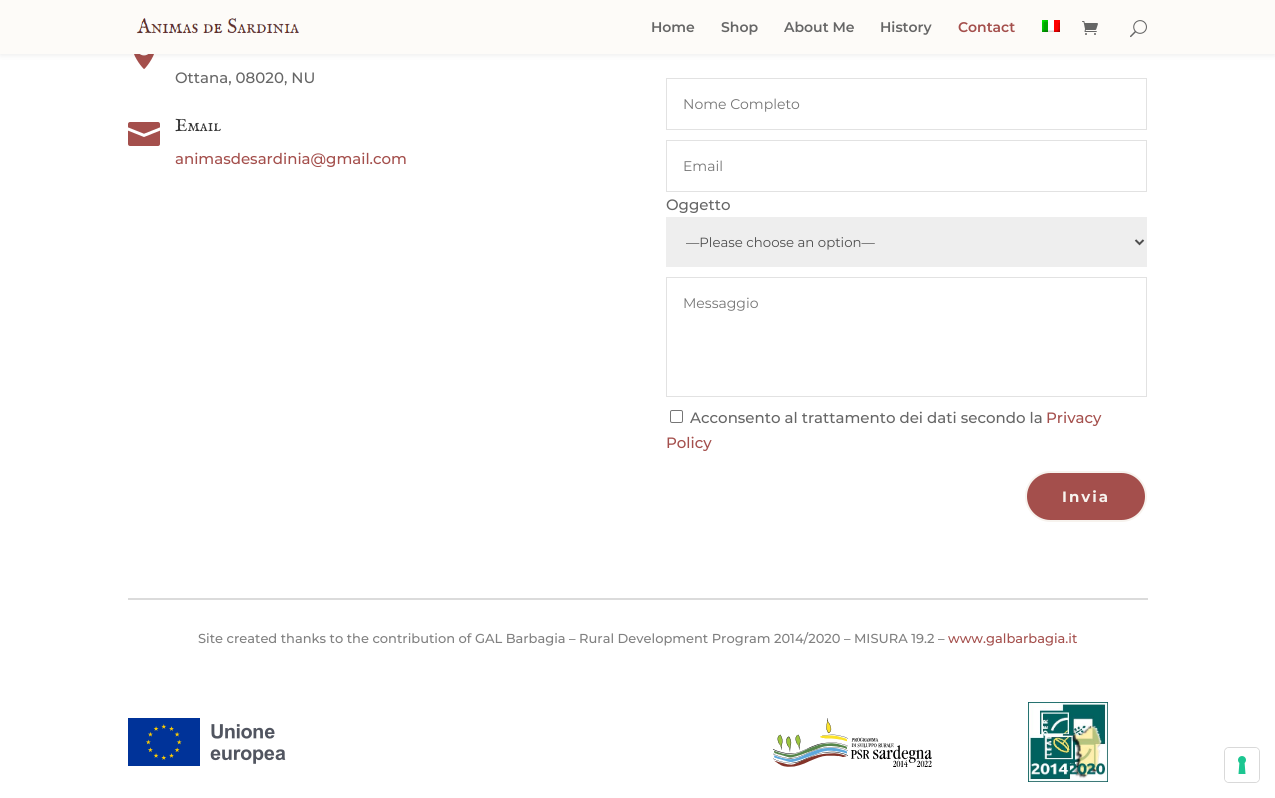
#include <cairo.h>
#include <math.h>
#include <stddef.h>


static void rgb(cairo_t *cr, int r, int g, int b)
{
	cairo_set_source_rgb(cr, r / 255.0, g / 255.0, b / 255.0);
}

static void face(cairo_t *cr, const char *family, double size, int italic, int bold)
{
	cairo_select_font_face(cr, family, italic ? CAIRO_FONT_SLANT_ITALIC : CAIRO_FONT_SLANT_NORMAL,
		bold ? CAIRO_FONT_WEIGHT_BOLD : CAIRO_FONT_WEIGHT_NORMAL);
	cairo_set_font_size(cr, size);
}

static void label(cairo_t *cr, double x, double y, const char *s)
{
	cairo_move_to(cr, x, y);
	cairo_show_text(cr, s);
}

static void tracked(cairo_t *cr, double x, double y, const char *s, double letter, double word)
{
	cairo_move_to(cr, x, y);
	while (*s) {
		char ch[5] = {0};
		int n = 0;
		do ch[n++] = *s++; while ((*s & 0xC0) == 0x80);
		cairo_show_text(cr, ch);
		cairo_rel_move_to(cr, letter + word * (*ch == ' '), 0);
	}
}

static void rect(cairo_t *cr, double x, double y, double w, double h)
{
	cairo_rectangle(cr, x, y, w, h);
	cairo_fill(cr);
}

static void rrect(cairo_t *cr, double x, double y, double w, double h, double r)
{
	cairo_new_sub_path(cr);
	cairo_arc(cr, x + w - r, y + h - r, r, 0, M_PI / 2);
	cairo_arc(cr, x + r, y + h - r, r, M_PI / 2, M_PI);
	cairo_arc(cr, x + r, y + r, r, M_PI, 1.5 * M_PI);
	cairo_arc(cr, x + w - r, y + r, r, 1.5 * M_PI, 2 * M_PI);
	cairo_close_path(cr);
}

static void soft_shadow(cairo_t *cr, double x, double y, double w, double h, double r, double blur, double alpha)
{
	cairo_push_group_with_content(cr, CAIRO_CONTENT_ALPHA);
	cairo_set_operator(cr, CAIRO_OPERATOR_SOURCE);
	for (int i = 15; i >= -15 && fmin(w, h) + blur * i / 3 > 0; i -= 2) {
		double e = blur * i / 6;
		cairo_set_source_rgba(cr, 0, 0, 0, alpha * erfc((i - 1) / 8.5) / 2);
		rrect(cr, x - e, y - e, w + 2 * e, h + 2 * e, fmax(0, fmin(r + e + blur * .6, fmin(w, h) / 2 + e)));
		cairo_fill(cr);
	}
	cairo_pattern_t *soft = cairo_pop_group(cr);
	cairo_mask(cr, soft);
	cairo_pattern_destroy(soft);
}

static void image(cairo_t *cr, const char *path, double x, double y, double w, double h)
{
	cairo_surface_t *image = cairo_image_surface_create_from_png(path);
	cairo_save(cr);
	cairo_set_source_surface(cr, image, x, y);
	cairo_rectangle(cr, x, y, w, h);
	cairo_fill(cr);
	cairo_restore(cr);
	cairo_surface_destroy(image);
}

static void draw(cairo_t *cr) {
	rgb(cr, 255, 255, 255);
	cairo_paint(cr);
	image(cr, "image4.png", 134, 54, 20, 15);
	rgb(cr, 0, 0, 0);
	soft_shadow(cr, 0, 0, 1275, 54, 0, 3.5, 0.1);
	rgb(cr, 253, 251, 248);
	rect(cr, 0, 0, 1275, 54);
	image(cr, "image0.png", 136, 18, 164, 16);
	face(cr, "Montserrat SemiBold", 14, 0, 0);
	rgb(cr, 102, 102, 102);
	label(cr, 651, 32, "Home");
	label(cr, 721, 32, "Shop");
	label(cr, 784, 32, "About Me");
	label(cr, 880, 32, "History");
	rgb(cr, 164, 79, 76);
	label(cr, 958, 32, "Contact");
	image(cr, "image1.png", 1042, 20, 18, 12);
	image(cr, "image2.png", 1082, 21, 16, 14);
	image(cr, "image3.png", 1130, 20, 17, 18);
	face(cr, "Montserrat Medium", 15, 0, 0);
	rgb(cr, 102, 102, 102);
	label(cr, 175, 83, "Ottana, 08020, NU");
	image(cr, "image5.png", 128, 122, 32, 24);
	face(cr, "IM FELL English SC", 18, 0, 0);
	rgb(cr, 51, 51, 51);
	label(cr, 175, 131, "Email");
	face(cr, "Montserrat Medium", 15, 0, 0);
	rgb(cr, 164, 79, 76);
	label(cr, 175, 164, "animasdesardinia@gmail.com");
	cairo_rectangle(cr, 666.5, 78.5, 480, 51);
	rgb(cr, 226, 226, 226);
	cairo_set_line_width(cr, 1);
	cairo_stroke(cr);
	face(cr, "Montserrat", 14, 0, 0);
	rgb(cr, 117, 117, 117);
	label(cr, 683, 109, "Nome Completo");
	cairo_rectangle(cr, 666.5, 140.5, 480, 51);
	rgb(cr, 226, 226, 226);
	cairo_stroke(cr);
	rgb(cr, 117, 117, 117);
	label(cr, 683, 171, "Email");
	face(cr, "Montserrat Medium", 15, 0, 0);
	rgb(cr, 102, 102, 102);
	label(cr, 666, 210, "Oggetto");
	rgb(cr, 238, 238, 238);
	rect(cr, 666, 217, 481, 50);
	cairo_new_path(cr);
	cairo_move_to(cr, 1135.5, 240);
	cairo_line_to(cr, 1139.5, 244);
	cairo_line_to(cr, 1143.5, 240);
	rgb(cr, 78, 78, 78);
	cairo_set_line_width(cr, 2);
	cairo_stroke(cr);
	face(cr, "Montserrat", 13.3, 0, 0);
	label(cr, 686, 247, "—Please choose an option—");
	cairo_rectangle(cr, 666.5, 277.5, 480, 119);
	rgb(cr, 226, 226, 226);
	cairo_set_line_width(cr, 1);
	cairo_stroke(cr);
	face(cr, "Montserrat", 14, 0, 0);
	rgb(cr, 117, 117, 117);
	label(cr, 683, 308, "Messaggio");
	rrect(cr, 670.5, 410.5, 12, 12, 1.5);
	rgb(cr, 118, 118, 118);
	cairo_stroke(cr);
	face(cr, "Montserrat Medium", 15, 0, 0);
	rgb(cr, 102, 102, 102);
	label(cr, 690, 423, "Acconsento al trattamento dei dati secondo la");
	rgb(cr, 164, 79, 76);
	label(cr, 1046, 423, "Privacy");
	label(cr, 666, 448, "Policy");
	rrect(cr, 1026, 472, 120, 49, 24.5);
	cairo_fill_preserve(cr);
	rgb(cr, 247, 243, 238);
	cairo_set_line_width(cr, 2);
	cairo_stroke(cr);
	face(cr, "Montserrat", 15, 0, 1);
	tracked(cr, 1062, 502, "Invia", 2, 0);
	rgb(cr, 219, 219, 219);
	rect(cr, 128, 598, 1020, 2);
	face(cr, "Montserrat Medium", 13, 0, 0);
	rgb(cr, 128, 128, 128);
	label(cr, 198, 643, "Site created thanks to the contribution of GAL Barbagia – Rural Development Program 2014/2020 – MISURA 19.2 –");
	rgb(cr, 164, 79, 76);
	label(cr, 948, 643, "www.galbarbagia.it");
	image(cr, "image6.png", 128, 718, 158, 48);
	image(cr, "image7.png", 773, 718, 159, 49);
	image(cr, "image8.png", 1028, 702, 80, 80);
	rrect(cr, 1224.5, 747.5, 35, 35, 4.5);
	rgb(cr, 217, 217, 217);
	cairo_set_line_width(cr, 1);
	cairo_stroke(cr);
	rgb(cr, 255, 255, 255);
	rrect(cr, 1225, 748, 34, 34, 4);
	cairo_fill(cr);
	image(cr, "image9.png", 1238, 756, 8, 18);
}

int main(void) {
	cairo_surface_t *surface = cairo_image_surface_create(CAIRO_FORMAT_RGB24, 1275, 798);
	cairo_t *cr = cairo_create(surface);
	cairo_font_options_t *options = cairo_font_options_create();
	cairo_font_options_set_hint_metrics(options, CAIRO_HINT_METRICS_OFF);
	cairo_font_options_set_hint_style(options, CAIRO_HINT_STYLE_NONE);
	cairo_set_font_options(cr, options);
	cairo_set_miter_limit(cr, 4);
	draw(cr);
	cairo_surface_write_to_png(surface, "render.png");
	cairo_font_options_destroy(options);
	cairo_destroy(cr);
	cairo_surface_destroy(surface);
	return 0;
}
